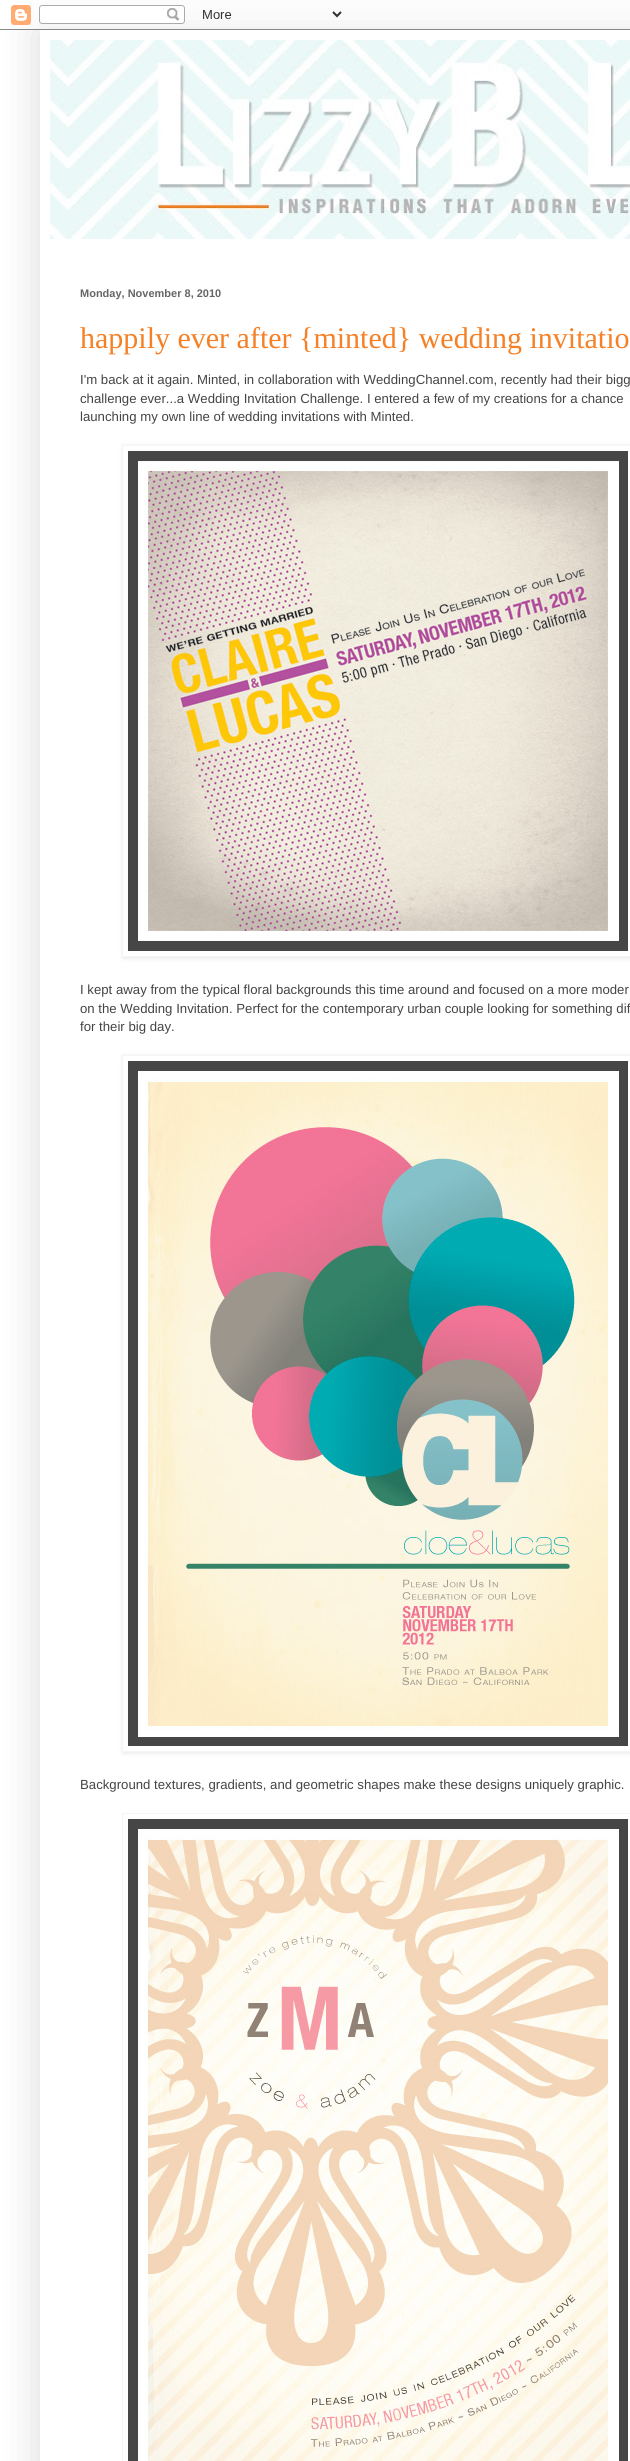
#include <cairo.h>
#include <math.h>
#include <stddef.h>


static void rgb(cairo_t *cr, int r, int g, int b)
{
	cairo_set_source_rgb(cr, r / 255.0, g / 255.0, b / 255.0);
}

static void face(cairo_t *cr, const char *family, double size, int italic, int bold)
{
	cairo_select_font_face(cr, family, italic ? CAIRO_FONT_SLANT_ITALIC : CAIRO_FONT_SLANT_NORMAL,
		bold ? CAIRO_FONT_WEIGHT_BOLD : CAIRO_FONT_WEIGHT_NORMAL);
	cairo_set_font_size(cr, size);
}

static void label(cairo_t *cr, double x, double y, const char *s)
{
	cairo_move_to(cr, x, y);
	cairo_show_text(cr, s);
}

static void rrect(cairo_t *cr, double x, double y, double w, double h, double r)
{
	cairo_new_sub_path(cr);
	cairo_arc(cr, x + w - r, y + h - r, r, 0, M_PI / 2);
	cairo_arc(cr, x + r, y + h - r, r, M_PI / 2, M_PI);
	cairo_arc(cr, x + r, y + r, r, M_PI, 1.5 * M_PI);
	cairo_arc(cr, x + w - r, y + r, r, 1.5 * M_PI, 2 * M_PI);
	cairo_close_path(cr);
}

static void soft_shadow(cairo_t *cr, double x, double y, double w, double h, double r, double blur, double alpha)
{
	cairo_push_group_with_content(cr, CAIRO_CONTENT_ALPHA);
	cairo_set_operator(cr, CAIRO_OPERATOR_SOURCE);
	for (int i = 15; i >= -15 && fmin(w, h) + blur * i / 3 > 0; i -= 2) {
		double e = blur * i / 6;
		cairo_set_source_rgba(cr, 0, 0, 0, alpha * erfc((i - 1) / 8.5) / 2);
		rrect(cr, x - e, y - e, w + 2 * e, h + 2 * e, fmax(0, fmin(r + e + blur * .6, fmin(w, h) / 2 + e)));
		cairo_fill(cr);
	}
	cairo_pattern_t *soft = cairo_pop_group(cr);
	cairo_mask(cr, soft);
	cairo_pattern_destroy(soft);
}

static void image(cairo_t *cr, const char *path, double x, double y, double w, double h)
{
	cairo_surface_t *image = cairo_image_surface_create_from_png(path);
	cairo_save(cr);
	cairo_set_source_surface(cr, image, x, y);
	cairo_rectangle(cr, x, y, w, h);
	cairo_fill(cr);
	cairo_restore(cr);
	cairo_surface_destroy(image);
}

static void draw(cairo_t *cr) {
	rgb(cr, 255, 255, 255);
	cairo_paint(cr);
	cairo_save(cr);
	cairo_set_fill_rule(cr, CAIRO_FILL_RULE_EVEN_ODD);
	cairo_new_path(cr);
	cairo_move_to(cr, 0, 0);
	cairo_line_to(cr, 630, 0);
	cairo_line_to(cr, 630, 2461);
	cairo_line_to(cr, 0, 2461);
	cairo_close_path(cr);
	cairo_move_to(cr, 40, 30);
	cairo_line_to(cr, 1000, 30);
	cairo_line_to(cr, 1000, 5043);
	cairo_line_to(cr, 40, 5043);
	cairo_close_path(cr);
	cairo_clip(cr);
	rgb(cr, 0, 0, 0);
	soft_shadow(cr, 40, 30, 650, 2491, 0, 20, 0.15);
	cairo_restore(cr);
	image(cr, "image0.png", 0, 5, 630, 25);
	image(cr, "image1.png", 50, 40, 580, 199);
	face(cr, "Liberation Sans", 11, 0, 1);
	rgb(cr, 102, 102, 102);
	label(cr, 80, 297, "Monday, November 8, 2010");
	face(cr, "Liberation Serif", 30, 0, 0);
	rgb(cr, 245, 128, 37);
	label(cr, 80, 348, "happily ever after {minted} wedding invitatio");
	face(cr, "Liberation Sans", 13.2, 0, 0);
	rgb(cr, 68, 68, 68);
	label(cr, 80, 384, "I'm back at it again. Minted, in collaboration with WeddingChannel.com, recently had their bigg");
	label(cr, 80, 403, "challenge ever...a Wedding Invitation Challenge. I entered a few of my creations for a chance");
	label(cr, 80, 421, "launching my own line of wedding invitations with Minted.");
	cairo_save(cr);
	cairo_set_fill_rule(cr, CAIRO_FILL_RULE_EVEN_ODD);
	cairo_new_path(cr);
	cairo_move_to(cr, 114, 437);
	cairo_line_to(cr, 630, 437);
	cairo_line_to(cr, 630, 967);
	cairo_line_to(cr, 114, 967);
	cairo_close_path(cr);
	cairo_move_to(cr, 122, 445);
	cairo_line_to(cr, 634, 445);
	cairo_line_to(cr, 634, 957);
	cairo_line_to(cr, 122, 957);
	cairo_close_path(cr);
	cairo_clip(cr);
	rgb(cr, 0, 0, 0);
	soft_shadow(cr, 123, 446, 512, 512, 0, 2.5, 0.1);
	cairo_restore(cr);
	cairo_rectangle(cr, 122.5, 445.5, 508, 511);
	rgb(cr, 245, 245, 245);
	cairo_set_line_width(cr, 1);
	cairo_stroke(cr);
	image(cr, "image2.png", 128, 451, 500, 500);
	rgb(cr, 68, 68, 68);
	label(cr, 80, 994, "I kept away from the typical floral backgrounds this time around and focused on a more moder");
	label(cr, 80, 1013, "on the Wedding Invitation. Perfect for the contemporary urban couple looking for something dif");
	label(cr, 80, 1031, "for their big day.");
	cairo_save(cr);
	cairo_set_fill_rule(cr, CAIRO_FILL_RULE_EVEN_ODD);
	cairo_new_path(cr);
	cairo_move_to(cr, 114, 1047);
	cairo_line_to(cr, 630, 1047);
	cairo_line_to(cr, 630, 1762);
	cairo_line_to(cr, 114, 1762);
	cairo_close_path(cr);
	cairo_move_to(cr, 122, 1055);
	cairo_line_to(cr, 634, 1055);
	cairo_line_to(cr, 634, 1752);
	cairo_line_to(cr, 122, 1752);
	cairo_close_path(cr);
	cairo_clip(cr);
	rgb(cr, 0, 0, 0);
	soft_shadow(cr, 123, 1056, 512, 697, 0, 2.5, 0.1);
	cairo_restore(cr);
	cairo_rectangle(cr, 122.5, 1055.5, 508, 696);
	rgb(cr, 245, 245, 245);
	cairo_stroke(cr);
	image(cr, "image3.png", 128, 1061, 500, 685);
	rgb(cr, 68, 68, 68);
	label(cr, 80, 1789, "Background textures, gradients, and geometric shapes make these designs uniquely graphic.");
	cairo_rectangle(cr, 122.5, 1813.5, 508, 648);
	rgb(cr, 245, 245, 245);
	cairo_stroke(cr);
	image(cr, "image4.png", 128, 1819, 500, 642);
}

int main(void) {
	cairo_surface_t *surface = cairo_image_surface_create(CAIRO_FORMAT_RGB24, 630, 2461);
	cairo_t *cr = cairo_create(surface);
	cairo_font_options_t *options = cairo_font_options_create();
	cairo_font_options_set_hint_metrics(options, CAIRO_HINT_METRICS_OFF);
	cairo_font_options_set_hint_style(options, CAIRO_HINT_STYLE_NONE);
	cairo_set_font_options(cr, options);
	cairo_set_miter_limit(cr, 4);
	draw(cr);
	cairo_surface_write_to_png(surface, "render.png");
	cairo_font_options_destroy(options);
	cairo_destroy(cr);
	cairo_surface_destroy(surface);
	return 0;
}
